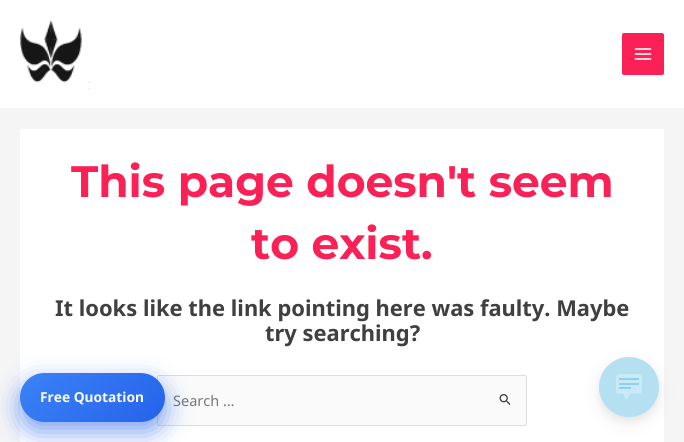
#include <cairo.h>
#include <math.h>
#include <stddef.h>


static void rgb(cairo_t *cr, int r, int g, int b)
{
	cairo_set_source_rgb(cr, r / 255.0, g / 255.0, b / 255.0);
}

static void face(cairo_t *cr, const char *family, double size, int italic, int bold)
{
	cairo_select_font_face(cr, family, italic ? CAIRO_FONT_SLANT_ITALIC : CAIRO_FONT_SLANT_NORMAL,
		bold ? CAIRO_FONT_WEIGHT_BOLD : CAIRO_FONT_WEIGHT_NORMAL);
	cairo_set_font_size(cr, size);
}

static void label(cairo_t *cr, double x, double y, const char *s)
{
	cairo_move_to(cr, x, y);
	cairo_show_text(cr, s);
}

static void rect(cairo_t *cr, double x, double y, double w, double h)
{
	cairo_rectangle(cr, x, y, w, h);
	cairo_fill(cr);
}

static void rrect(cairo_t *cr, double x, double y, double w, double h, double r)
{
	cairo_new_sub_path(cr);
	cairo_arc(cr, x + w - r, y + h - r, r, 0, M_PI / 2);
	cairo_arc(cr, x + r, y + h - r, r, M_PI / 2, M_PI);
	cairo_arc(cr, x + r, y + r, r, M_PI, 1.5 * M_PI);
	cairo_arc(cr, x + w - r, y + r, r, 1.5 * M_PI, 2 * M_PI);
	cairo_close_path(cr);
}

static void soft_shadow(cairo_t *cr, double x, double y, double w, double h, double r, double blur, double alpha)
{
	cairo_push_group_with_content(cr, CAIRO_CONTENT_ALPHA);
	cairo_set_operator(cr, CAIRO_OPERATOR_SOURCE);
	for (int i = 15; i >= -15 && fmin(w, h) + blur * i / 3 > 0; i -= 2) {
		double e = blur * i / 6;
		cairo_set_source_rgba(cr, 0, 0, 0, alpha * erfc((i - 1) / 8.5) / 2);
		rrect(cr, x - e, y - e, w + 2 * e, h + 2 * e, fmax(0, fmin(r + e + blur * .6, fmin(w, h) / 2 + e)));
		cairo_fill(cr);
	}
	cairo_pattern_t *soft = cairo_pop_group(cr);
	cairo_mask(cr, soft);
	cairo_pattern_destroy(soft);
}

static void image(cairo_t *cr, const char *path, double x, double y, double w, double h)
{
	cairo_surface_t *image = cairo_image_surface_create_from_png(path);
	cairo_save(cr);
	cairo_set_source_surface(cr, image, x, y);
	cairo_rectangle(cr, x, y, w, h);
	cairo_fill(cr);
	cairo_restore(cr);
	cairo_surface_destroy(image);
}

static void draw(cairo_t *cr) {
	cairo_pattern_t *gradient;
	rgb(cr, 245, 245, 245);
	cairo_paint(cr);
	rgb(cr, 255, 255, 255);
	rect(cr, 0, 0, 684, 108);
	image(cr, "image0.png", 20, 20, 70, 70);
	rgb(cr, 251, 32, 86);
	rrect(cr, 622, 33, 42, 42, 2);
	cairo_fill(cr);
	image(cr, "image1.png", 634, 48, 18, 12);
	rgb(cr, 255, 255, 255);
	rect(cr, 20, 129, 644, 313);
	face(cr, "Montserrat Thin", 44, 0, 0);
	rgb(cr, 251, 32, 86);
	label(cr, 71, 197, "This page doesn't seem");
	label(cr, 251, 259, "to exist.");
	face(cr, "Noto Sans", 21.9, 0, 1);
	rgb(cr, 64, 64, 64);
	label(cr, 55, 316, "It looks like the link pointing here was faulty. Maybe");
	label(cr, 265, 341, "try searching?");
	rgb(cr, 250, 250, 250);
	rrect(cr, 157.5, 375.5, 369, 50, 1.5);
	cairo_fill_preserve(cr);
	rgb(cr, 221, 221, 221);
	cairo_set_line_width(cr, 1);
	cairo_stroke(cr);
	face(cr, "Noto Sans", 14.5, 0, 0);
	rgb(cr, 117, 117, 117);
	label(cr, 173, 406, "Search …");
	image(cr, "image2.png", 499, 394, 11, 12);
	rgb(cr, 37, 99, 235);
	soft_shadow(cr, 20, 383, 145, 49, 24.5, 12.5, 0.6);
	gradient = cairo_pattern_create_linear(44, 349, 141, 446);
	cairo_pattern_add_color_stop_rgba(gradient, 0, 0.231, 0.51, 0.965, 1);
	cairo_pattern_add_color_stop_rgba(gradient, 1, 0.145, 0.388, 0.922, 1);
	cairo_set_source(cr, gradient);
	cairo_pattern_destroy(gradient);
	rrect(cr, 20, 373, 145, 49, 24.5);
	cairo_fill(cr);
	face(cr, "Noto Sans", 13.75, 0, 1);
	rgb(cr, 249, 250, 251);
	label(cr, 40, 402, "Free Quotation");
	rgb(cr, 0, 0, 0);
	soft_shadow(cr, 599, 363, 60, 60, 30, 10, 0.06);
	soft_shadow(cr, 599, 361, 60, 60, 30, 4, 0.06);
	rgb(cr, 180, 224, 242);
	cairo_arc(cr, 629, 387, 30, 0, 2 * M_PI);
	cairo_fill(cr);
	image(cr, "image3.png", 616, 374, 26, 26);
}

int main(void) {
	cairo_surface_t *surface = cairo_image_surface_create(CAIRO_FORMAT_RGB24, 684, 442);
	cairo_t *cr = cairo_create(surface);
	cairo_font_options_t *options = cairo_font_options_create();
	cairo_font_options_set_hint_metrics(options, CAIRO_HINT_METRICS_OFF);
	cairo_font_options_set_hint_style(options, CAIRO_HINT_STYLE_NONE);
	cairo_set_font_options(cr, options);
	cairo_set_miter_limit(cr, 4);
	draw(cr);
	cairo_surface_write_to_png(surface, "render.png");
	cairo_font_options_destroy(options);
	cairo_destroy(cr);
	cairo_surface_destroy(surface);
	return 0;
}
